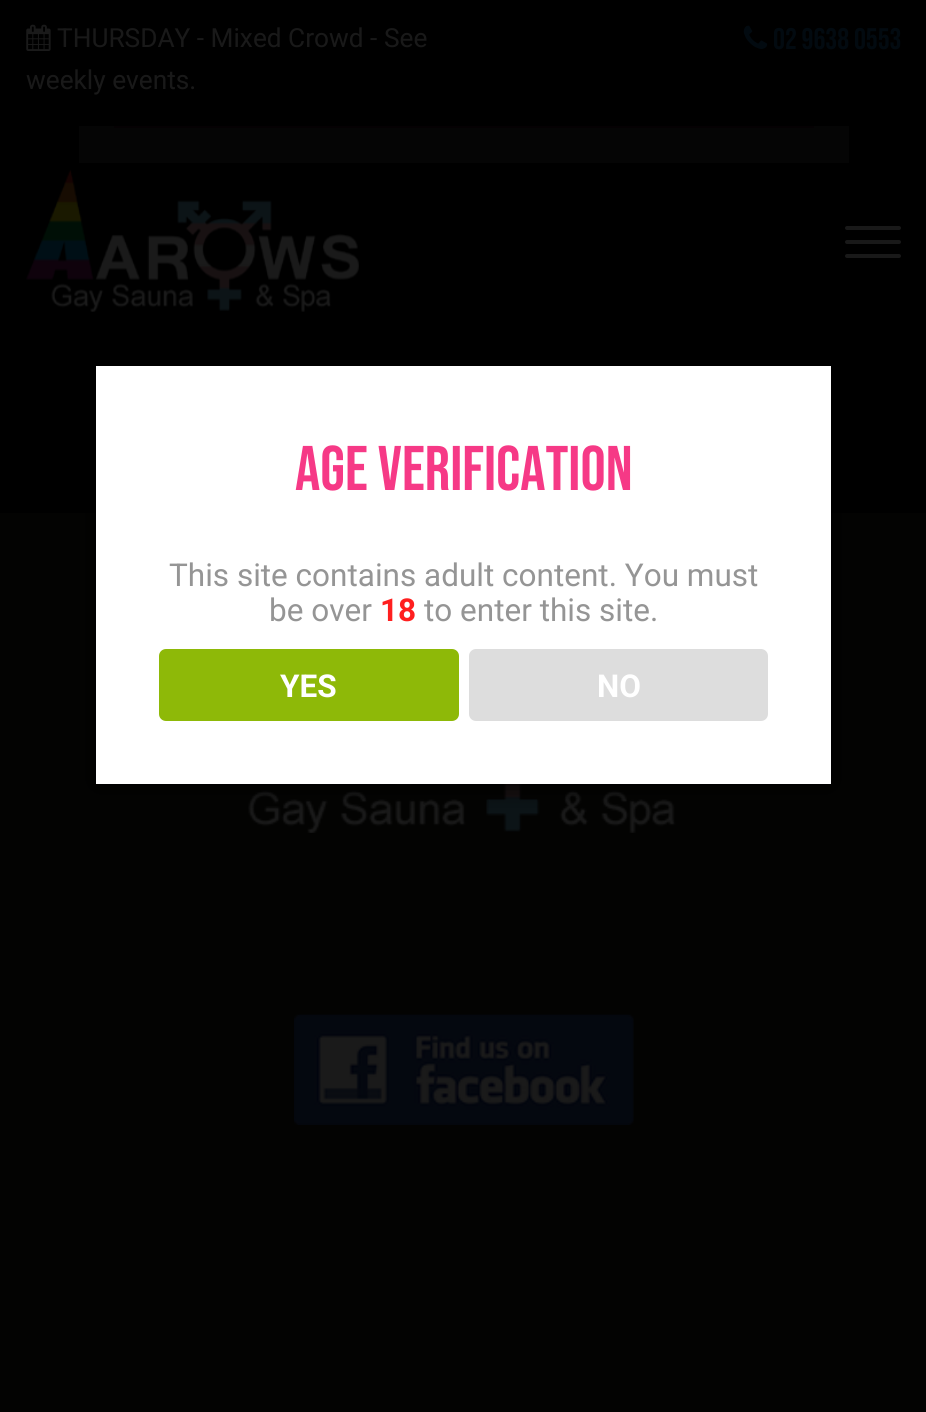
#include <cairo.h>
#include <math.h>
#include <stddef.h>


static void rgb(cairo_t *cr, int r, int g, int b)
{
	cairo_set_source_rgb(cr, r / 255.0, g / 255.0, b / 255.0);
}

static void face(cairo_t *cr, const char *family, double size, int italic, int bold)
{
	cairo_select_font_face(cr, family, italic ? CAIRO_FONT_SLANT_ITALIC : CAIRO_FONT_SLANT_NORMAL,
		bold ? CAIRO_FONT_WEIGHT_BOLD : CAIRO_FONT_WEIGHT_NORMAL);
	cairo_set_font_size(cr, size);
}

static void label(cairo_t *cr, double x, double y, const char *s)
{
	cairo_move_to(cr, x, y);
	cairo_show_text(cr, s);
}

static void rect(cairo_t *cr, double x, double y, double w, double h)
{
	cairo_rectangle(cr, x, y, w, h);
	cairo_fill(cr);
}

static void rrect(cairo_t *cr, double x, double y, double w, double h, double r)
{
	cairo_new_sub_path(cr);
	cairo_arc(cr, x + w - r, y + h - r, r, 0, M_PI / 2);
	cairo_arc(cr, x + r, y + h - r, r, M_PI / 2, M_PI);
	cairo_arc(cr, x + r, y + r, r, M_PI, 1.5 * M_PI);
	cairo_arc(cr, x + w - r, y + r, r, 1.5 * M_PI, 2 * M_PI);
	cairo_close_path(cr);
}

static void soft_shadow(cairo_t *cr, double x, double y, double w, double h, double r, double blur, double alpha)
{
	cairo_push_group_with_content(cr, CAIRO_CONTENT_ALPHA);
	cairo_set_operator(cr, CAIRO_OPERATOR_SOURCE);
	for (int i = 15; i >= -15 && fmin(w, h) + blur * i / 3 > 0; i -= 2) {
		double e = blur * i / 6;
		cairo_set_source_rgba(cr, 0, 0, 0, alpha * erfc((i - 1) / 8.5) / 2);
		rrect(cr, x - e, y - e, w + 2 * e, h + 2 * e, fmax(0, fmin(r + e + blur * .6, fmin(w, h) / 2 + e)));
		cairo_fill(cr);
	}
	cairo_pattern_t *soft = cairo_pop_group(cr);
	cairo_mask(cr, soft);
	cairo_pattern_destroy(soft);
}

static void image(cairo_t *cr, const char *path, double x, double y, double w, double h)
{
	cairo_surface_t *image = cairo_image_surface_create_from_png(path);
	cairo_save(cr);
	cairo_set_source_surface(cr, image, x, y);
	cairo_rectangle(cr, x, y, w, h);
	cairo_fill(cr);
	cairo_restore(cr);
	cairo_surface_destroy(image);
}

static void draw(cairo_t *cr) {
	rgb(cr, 0, 0, 0);
	cairo_paint(cr);
	rgb(cr, 25, 25, 25);
	rect(cr, 79, 126, 770, 37);
	rgb(cr, 25, 6, 13);
	rect(cr, 114, 126, 700, 2);
	cairo_set_source_rgba(cr, 0, 0, 0, 0.8);
	rect(cr, 79, 126, 770, 37);
	image(cr, "image0.png", 26, 24, 25, 27);
	face(cr, "Roboto", 26.25, 0, 0);
	rgb(cr, 25, 25, 25);
	label(cr, 57, 47, "THURSDAY - Mixed Crowd - See");
	label(cr, 26, 89, "weekly events.");
	image(cr, "image1.png", 743, 25, 25, 24);
	face(cr, "Bebas Neue", 29.75, 0, 0);
	rgb(cr, 2, 10, 16);
	label(cr, 773, 49, "02 9638 0553");
	image(cr, "image2.png", 26, 169, 333, 143);
	rgb(cr, 25, 25, 25);
	rrect(cr, 845, 226, 56, 4, 2);
	cairo_fill(cr);
	rrect(cr, 845, 240, 56, 4, 2);
	cairo_fill(cr);
	rrect(cr, 845, 254, 56, 4, 2);
	cairo_fill(cr);
	rgb(cr, 3, 3, 2);
	rect(cr, 0, 513, 926, 899);
	image(cr, "image3.png", 210, 784, 491, 49);
	rgb(cr, 0, 0, 0);
	soft_shadow(cr, 96, 366, 735, 418, 0, 13, 1);
	rgb(cr, 255, 255, 255);
	rect(cr, 96, 366, 735, 418);
	face(cr, "Bebas Neue", 63, 0, 0);
	rgb(cr, 246, 57, 134);
	label(cr, 295, 490, "Age Verification");
	face(cr, "Roboto", 31.5, 0, 0);
	rgb(cr, 149, 149, 149);
	label(cr, 169, 586, "This site contains adult content. You must");
	label(cr, 269, 621, "be over");
	face(cr, "Roboto", 31.5, 0, 1);
	rgb(cr, 255, 31, 31);
	label(cr, 380, 621, "18");
	face(cr, "Roboto", 31.5, 0, 0);
	rgb(cr, 149, 149, 149);
	label(cr, 424, 621, "to enter this site.");
	rgb(cr, 142, 185, 8);
	rrect(cr, 159, 649, 300, 72, 7);
	cairo_fill(cr);
	face(cr, "Roboto", 31.5, 0, 1);
	rgb(cr, 255, 255, 255);
	label(cr, 280, 697, "YES");
	rgb(cr, 221, 221, 221);
	rrect(cr, 469, 649, 299, 72, 7);
	cairo_fill(cr);
	rgb(cr, 255, 255, 255);
	label(cr, 597, 697, "NO");
	image(cr, "image4.png", 294, 1014, 340, 111);
}

int main(void) {
	cairo_surface_t *surface = cairo_image_surface_create(CAIRO_FORMAT_RGB24, 926, 1412);
	cairo_t *cr = cairo_create(surface);
	cairo_font_options_t *options = cairo_font_options_create();
	cairo_font_options_set_hint_metrics(options, CAIRO_HINT_METRICS_OFF);
	cairo_font_options_set_hint_style(options, CAIRO_HINT_STYLE_NONE);
	cairo_set_font_options(cr, options);
	cairo_set_miter_limit(cr, 4);
	draw(cr);
	cairo_surface_write_to_png(surface, "render.png");
	cairo_font_options_destroy(options);
	cairo_destroy(cr);
	cairo_surface_destroy(surface);
	return 0;
}
